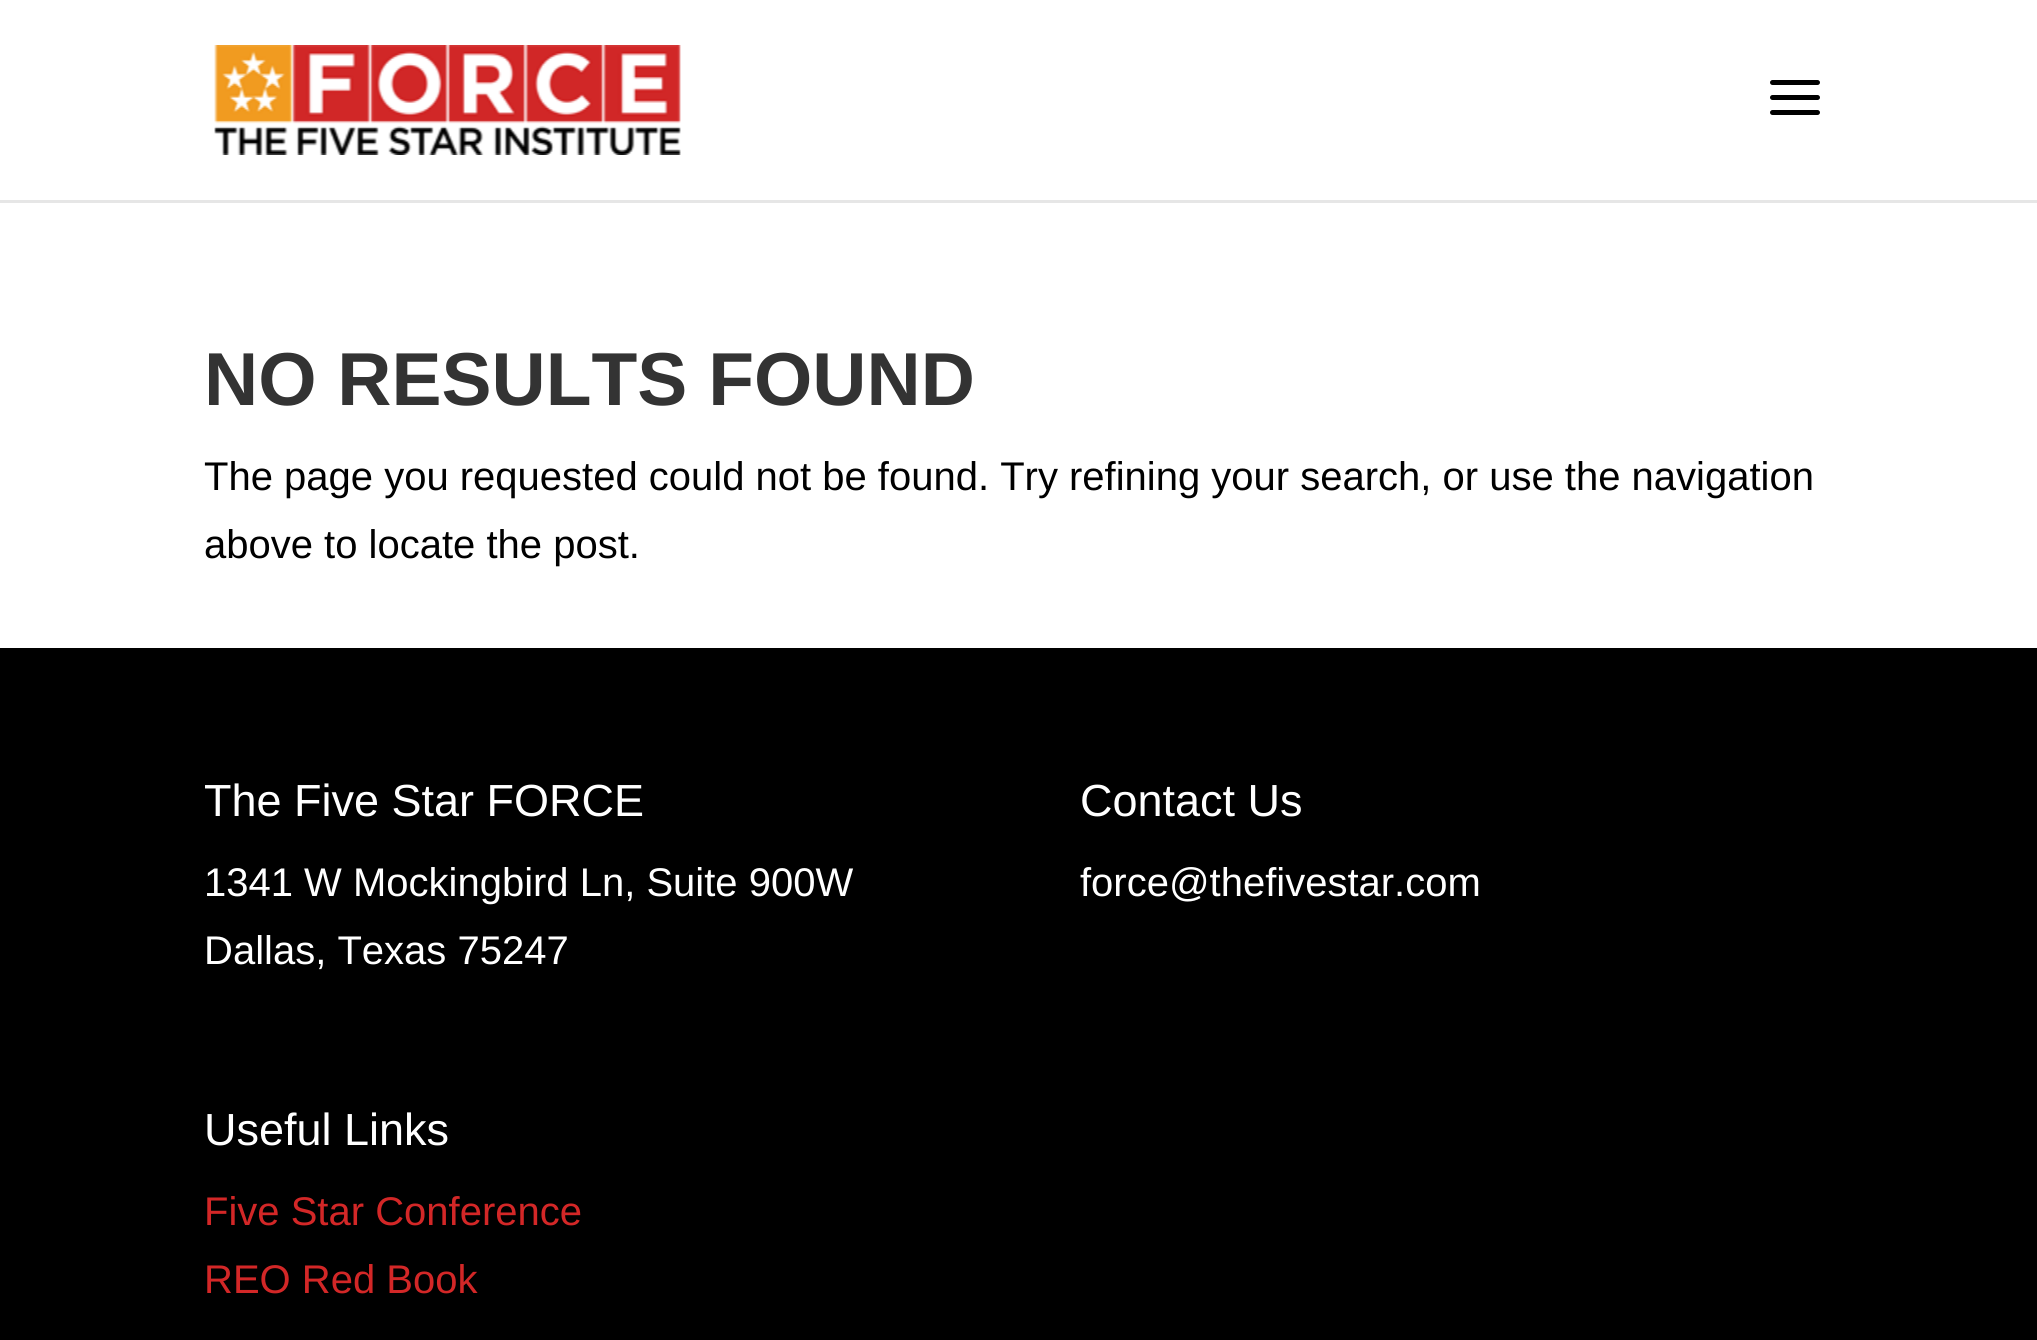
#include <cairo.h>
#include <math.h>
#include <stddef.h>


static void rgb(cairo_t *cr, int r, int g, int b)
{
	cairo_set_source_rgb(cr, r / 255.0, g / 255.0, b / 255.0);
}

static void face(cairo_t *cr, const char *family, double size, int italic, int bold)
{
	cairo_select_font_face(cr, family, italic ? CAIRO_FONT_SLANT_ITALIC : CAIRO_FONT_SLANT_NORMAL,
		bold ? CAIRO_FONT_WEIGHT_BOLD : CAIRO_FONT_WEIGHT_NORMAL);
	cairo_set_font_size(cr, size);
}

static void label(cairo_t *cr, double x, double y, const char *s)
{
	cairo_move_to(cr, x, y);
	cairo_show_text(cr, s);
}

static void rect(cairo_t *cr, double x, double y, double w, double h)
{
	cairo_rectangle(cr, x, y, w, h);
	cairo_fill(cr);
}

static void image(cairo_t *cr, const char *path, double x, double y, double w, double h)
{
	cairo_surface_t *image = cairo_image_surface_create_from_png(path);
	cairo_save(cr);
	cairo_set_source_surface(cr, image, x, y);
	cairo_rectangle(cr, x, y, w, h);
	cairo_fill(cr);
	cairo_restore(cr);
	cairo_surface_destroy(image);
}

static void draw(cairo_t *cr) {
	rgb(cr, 255, 255, 255);
	cairo_paint(cr);
	rgb(cr, 230, 230, 230);
	cairo_new_path(cr);
	cairo_move_to(cr, 0, 200);
	cairo_line_to(cr, 0, 203);
	cairo_line_to(cr, 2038, 203);
	cairo_line_to(cr, 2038, 3);
	cairo_line_to(cr, 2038, 200);
	cairo_close_path(cr);
	cairo_fill(cr);
	image(cr, "image0.png", 214, 45, 467, 110);
	image(cr, "image1.png", 1770, 80, 50, 35);
	face(cr, "Liberation Sans", 75, 0, 1);
	rgb(cr, 51, 51, 51);
	label(cr, 204, 405, "NO RESULTS FOUND");
	face(cr, "Liberation Sans", 40, 0, 0);
	rgb(cr, 0, 0, 0);
	label(cr, 204, 490, "The page you requested could not be found. Try refining your search, or use the navigation");
	label(cr, 204, 558, "above to locate the post.");
	rect(cr, 0, 648, 2037, 692);
	face(cr, "Liberation Sans", 45, 0, 0);
	rgb(cr, 255, 255, 255);
	label(cr, 204, 816, "The Five Star FORCE");
	face(cr, "Liberation Sans", 40, 0, 0);
	label(cr, 204, 896, "1341 W Mockingbird Ln, Suite 900W");
	label(cr, 204, 964, "Dallas, Texas 75247");
	face(cr, "Liberation Sans", 45, 0, 0);
	label(cr, 1080, 816, "Contact Us");
	face(cr, "Liberation Sans", 40, 0, 0);
	label(cr, 1080, 896, "force@thefivestar.com");
	face(cr, "Liberation Sans", 45, 0, 0);
	label(cr, 204, 1145, "Useful Links");
	face(cr, "Liberation Sans", 40, 0, 0);
	rgb(cr, 211, 39, 39);
	label(cr, 204, 1225, "Five Star Conference");
	label(cr, 204, 1293, "REO Red Book");
}

int main(void) {
	cairo_surface_t *surface = cairo_image_surface_create(CAIRO_FORMAT_RGB24, 2037, 1340);
	cairo_t *cr = cairo_create(surface);
	cairo_font_options_t *options = cairo_font_options_create();
	cairo_font_options_set_hint_metrics(options, CAIRO_HINT_METRICS_OFF);
	cairo_font_options_set_hint_style(options, CAIRO_HINT_STYLE_NONE);
	cairo_set_font_options(cr, options);
	cairo_set_miter_limit(cr, 4);
	draw(cr);
	cairo_surface_write_to_png(surface, "render.png");
	cairo_font_options_destroy(options);
	cairo_destroy(cr);
	cairo_surface_destroy(surface);
	return 0;
}
